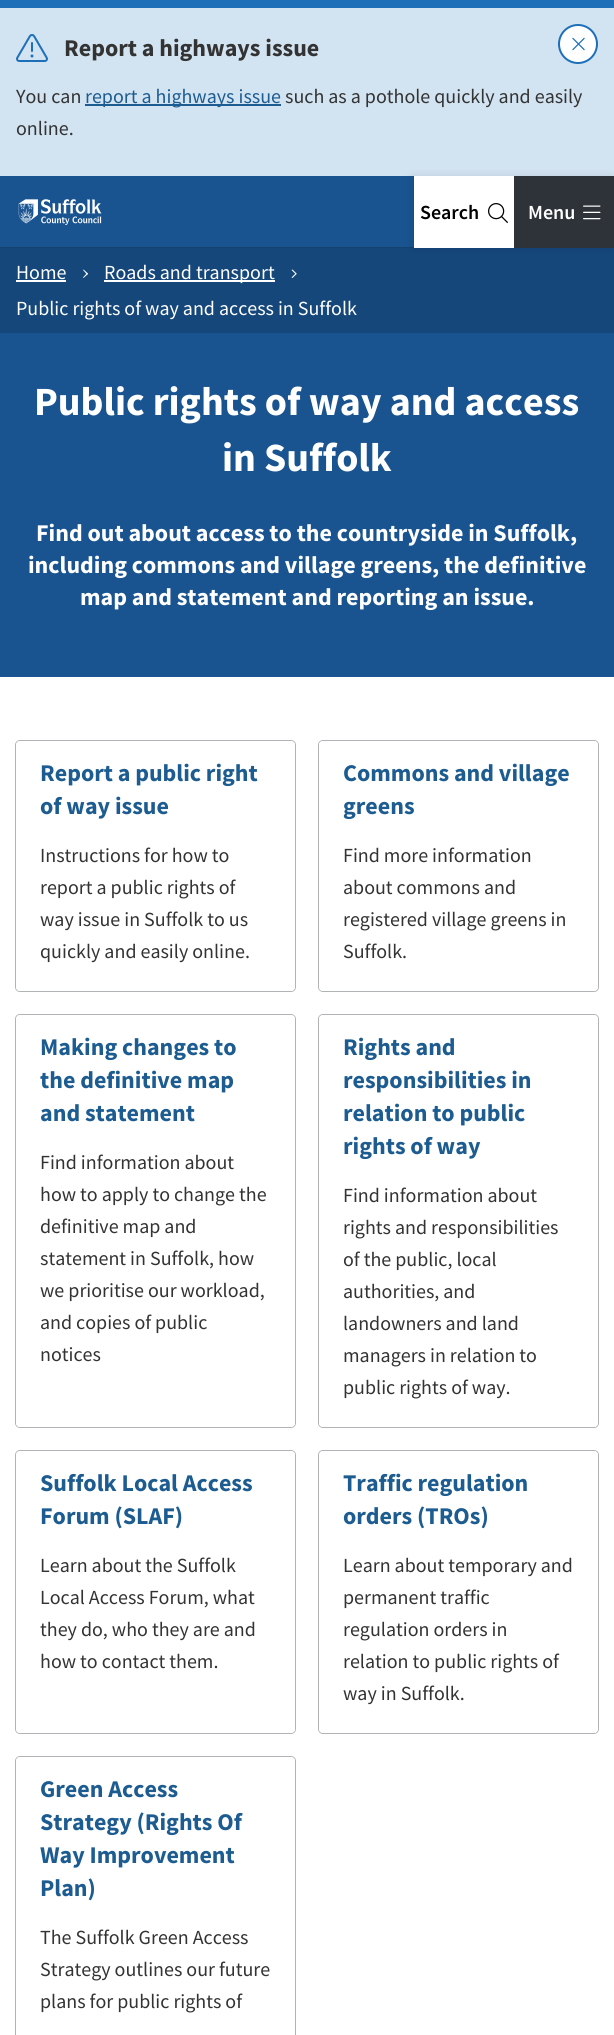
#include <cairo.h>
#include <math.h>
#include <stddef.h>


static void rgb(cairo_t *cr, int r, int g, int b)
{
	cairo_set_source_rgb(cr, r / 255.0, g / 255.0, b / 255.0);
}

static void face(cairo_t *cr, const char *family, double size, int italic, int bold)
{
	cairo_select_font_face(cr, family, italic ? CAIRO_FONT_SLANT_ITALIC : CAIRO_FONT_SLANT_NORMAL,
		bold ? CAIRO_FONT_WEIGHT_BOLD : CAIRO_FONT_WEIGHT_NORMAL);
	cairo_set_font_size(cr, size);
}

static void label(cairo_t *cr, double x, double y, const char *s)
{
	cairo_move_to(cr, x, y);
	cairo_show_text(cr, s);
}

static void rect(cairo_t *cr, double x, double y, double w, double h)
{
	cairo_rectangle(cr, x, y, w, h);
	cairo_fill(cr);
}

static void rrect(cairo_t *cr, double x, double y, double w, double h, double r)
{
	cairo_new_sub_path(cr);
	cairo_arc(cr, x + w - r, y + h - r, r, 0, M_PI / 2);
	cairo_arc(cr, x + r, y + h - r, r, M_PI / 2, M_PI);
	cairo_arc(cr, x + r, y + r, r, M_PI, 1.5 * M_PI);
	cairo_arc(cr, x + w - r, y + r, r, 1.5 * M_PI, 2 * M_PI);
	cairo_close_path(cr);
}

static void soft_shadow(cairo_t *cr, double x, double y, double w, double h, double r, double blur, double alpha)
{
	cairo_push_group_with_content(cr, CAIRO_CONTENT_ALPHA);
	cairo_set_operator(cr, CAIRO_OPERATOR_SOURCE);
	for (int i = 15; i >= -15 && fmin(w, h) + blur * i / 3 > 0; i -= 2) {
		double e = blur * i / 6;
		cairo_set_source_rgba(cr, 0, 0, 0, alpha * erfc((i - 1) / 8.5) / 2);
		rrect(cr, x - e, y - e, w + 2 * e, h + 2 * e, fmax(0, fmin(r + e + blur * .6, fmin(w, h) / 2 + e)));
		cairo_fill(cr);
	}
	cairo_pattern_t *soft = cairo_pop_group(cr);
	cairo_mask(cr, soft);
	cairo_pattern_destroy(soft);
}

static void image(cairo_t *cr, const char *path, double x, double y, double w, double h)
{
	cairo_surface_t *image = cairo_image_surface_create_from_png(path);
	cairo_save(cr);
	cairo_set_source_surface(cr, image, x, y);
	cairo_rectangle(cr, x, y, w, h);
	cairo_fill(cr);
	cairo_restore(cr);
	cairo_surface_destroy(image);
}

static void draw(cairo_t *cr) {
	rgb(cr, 255, 255, 255);
	cairo_paint(cr);
	rgb(cr, 210, 227, 241);
	rect(cr, 0, 8, 614, 168);
	rgb(cr, 29, 112, 184);
	rect(cr, 0, 0, 614, 8);
	rgb(cr, 255, 255, 255);
	cairo_arc(cr, 578, 44, 19, 0, 2 * M_PI);
	cairo_fill_preserve(cr);
	rgb(cr, 29, 112, 184);
	cairo_stroke(cr);
	image(cr, "image0.png", 572, 37, 13, 14);
	image(cr, "image1.png", 16, 34, 32, 28);
	face(cr, "Source Sans Pro", 24, 0, 1);
	rgb(cr, 51, 51, 51);
	label(cr, 64, 56, "Report a highways issue");
	face(cr, "Source Sans Pro", 20, 0, 0);
	label(cr, 16, 103, "You can");
	rgb(cr, 29, 92, 144);
	rect(cr, 85, 104, 196, 2);
	label(cr, 85, 103, "report a highways issue");
	rgb(cr, 51, 51, 51);
	label(cr, 285, 103, "such as a pothole quickly and easily");
	label(cr, 16, 135, "online.");
	rgb(cr, 25, 84, 145);
	rect(cr, 0, 176, 414, 71);
	rgb(cr, 19, 65, 112);
	rect(cr, 0, 247, 414, 1);
	image(cr, "image2.png", 18, 199, 84, 26);
	rgb(cr, 21, 71, 123);
	rect(cr, 0, 248, 614, 85);
	rgb(cr, 0, 0, 0);
	soft_shadow(cr, 412, 176, 200, 72, 0, 4, 0.1);
	rgb(cr, 255, 255, 255);
	rect(cr, 414, 176, 100, 72);
	face(cr, "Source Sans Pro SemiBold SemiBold", 20, 0, 0);
	rgb(cr, 0, 0, 0);
	label(cr, 420, 219, "Search");
	image(cr, "image3.png", 488, 203, 20, 20);
	rgb(cr, 46, 51, 57);
	rect(cr, 514, 176, 100, 72);
	rgb(cr, 255, 255, 255);
	label(cr, 528, 219, "Menu");
	image(cr, "image4.png", 583, 205, 18, 15);
	face(cr, "Source Sans Pro", 20, 0, 0);
	label(cr, 16, 279, "Home");
	rect(cr, 16, 280, 50, 2);
	cairo_new_path(cr);
	cairo_move_to(cr, 83.5, 269.5);
	cairo_line_to(cr, 88, 273.5);
	cairo_line_to(cr, 87, 274.5);
	cairo_line_to(cr, 83, 270);
	cairo_close_path(cr);
	cairo_fill(cr);
	cairo_new_path(cr);
	cairo_move_to(cr, 88, 274);
	cairo_line_to(cr, 83.5, 278);
	cairo_line_to(cr, 83, 277.5);
	cairo_line_to(cr, 87, 273);
	cairo_close_path(cr);
	cairo_fill(cr);
	rect(cr, 104, 280, 171, 2);
	label(cr, 104, 279, "Roads and transport");
	cairo_new_path(cr);
	cairo_move_to(cr, 292.5, 269.5);
	cairo_line_to(cr, 296.5, 273.5);
	cairo_line_to(cr, 296, 274.5);
	cairo_line_to(cr, 291.5, 270);
	cairo_close_path(cr);
	cairo_fill(cr);
	cairo_new_path(cr);
	cairo_move_to(cr, 296.5, 274);
	cairo_line_to(cr, 292.5, 278);
	cairo_line_to(cr, 291.5, 277.5);
	cairo_line_to(cr, 296, 273);
	cairo_close_path(cr);
	cairo_fill(cr);
	label(cr, 16, 315, "Public rights of way and access in Suffolk");
	rgb(cr, 25, 84, 145);
	rect(cr, 0, 333, 614, 344);
	face(cr, "Source Sans Pro", 40, 0, 1);
	rgb(cr, 255, 255, 255);
	label(cr, 34, 415, "Public rights of way and access");
	label(cr, 222, 471, "in Suffolk");
	face(cr, "Source Sans Pro", 24, 0, 1);
	label(cr, 36, 541, "Find out about access to the countryside in Suffolk,");
	label(cr, 28, 573, "including commons and village greens, the definitive");
	label(cr, 80, 605, "map and statement and reporting an issue.");
	rrect(cr, 15.5, 740.5, 280, 251, 4.5);
	rgb(cr, 177, 180, 182);
	cairo_set_line_width(cr, 1);
	cairo_stroke(cr);
	rgb(cr, 255, 255, 255);
	rrect(cr, 16, 741, 279, 250, 4);
	cairo_fill(cr);
	rgb(cr, 29, 92, 144);
	label(cr, 40, 781, "Report a public right");
	label(cr, 40, 814, "of way issue");
	face(cr, "Source Sans Pro", 20, 0, 0);
	rgb(cr, 51, 51, 51);
	label(cr, 40, 862, "Instructions for how to");
	label(cr, 40, 894, "report a public rights of");
	label(cr, 40, 926, "way issue in Suffolk to us");
	label(cr, 40, 958, "quickly and easily online.");
	rrect(cr, 318.5, 740.5, 280, 251, 4.5);
	rgb(cr, 177, 180, 182);
	cairo_stroke(cr);
	rgb(cr, 255, 255, 255);
	rrect(cr, 319, 741, 279, 250, 4);
	cairo_fill(cr);
	face(cr, "Source Sans Pro", 24, 0, 1);
	rgb(cr, 29, 92, 144);
	label(cr, 343, 781, "Commons and village");
	label(cr, 343, 814, "greens");
	face(cr, "Source Sans Pro", 20, 0, 0);
	rgb(cr, 51, 51, 51);
	label(cr, 343, 862, "Find more information");
	label(cr, 343, 894, "about commons and");
	label(cr, 343, 926, "registered village greens in");
	label(cr, 343, 958, "Suffolk.");
	rrect(cr, 15.5, 1014.5, 280, 413, 4.5);
	rgb(cr, 177, 180, 182);
	cairo_stroke(cr);
	rgb(cr, 255, 255, 255);
	rrect(cr, 16, 1015, 279, 412, 4);
	cairo_fill(cr);
	face(cr, "Source Sans Pro", 24, 0, 1);
	rgb(cr, 29, 92, 144);
	label(cr, 40, 1055, "Making changes to");
	label(cr, 40, 1088, "the definitive map");
	label(cr, 40, 1121, "and statement");
	face(cr, "Source Sans Pro", 20, 0, 0);
	rgb(cr, 51, 51, 51);
	label(cr, 40, 1169, "Find information about");
	label(cr, 40, 1201, "how to apply to change the");
	label(cr, 40, 1233, "definitive map and");
	label(cr, 40, 1265, "statement in Suffolk, how");
	label(cr, 40, 1297, "we prioritise our workload,");
	label(cr, 40, 1329, "and copies of public");
	label(cr, 40, 1361, "notices");
	rrect(cr, 318.5, 1014.5, 280, 413, 4.5);
	rgb(cr, 177, 180, 182);
	cairo_stroke(cr);
	rgb(cr, 255, 255, 255);
	rrect(cr, 319, 1015, 279, 412, 4);
	cairo_fill(cr);
	face(cr, "Source Sans Pro", 24, 0, 1);
	rgb(cr, 29, 92, 144);
	label(cr, 343, 1055, "Rights and");
	label(cr, 343, 1088, "responsibilities in");
	label(cr, 343, 1121, "relation to public");
	label(cr, 343, 1154, "rights of way");
	face(cr, "Source Sans Pro", 20, 0, 0);
	rgb(cr, 51, 51, 51);
	label(cr, 343, 1202, "Find information about");
	label(cr, 343, 1234, "rights and responsibilities");
	label(cr, 343, 1266, "of the public, local");
	label(cr, 343, 1298, "authorities, and");
	label(cr, 343, 1330, "landowners and land");
	label(cr, 343, 1362, "managers in relation to");
	label(cr, 343, 1394, "public rights of way.");
	rrect(cr, 15.5, 1450.5, 280, 283, 4.5);
	rgb(cr, 177, 180, 182);
	cairo_stroke(cr);
	rgb(cr, 255, 255, 255);
	rrect(cr, 16, 1451, 279, 282, 4);
	cairo_fill(cr);
	face(cr, "Source Sans Pro", 24, 0, 1);
	rgb(cr, 29, 92, 144);
	label(cr, 40, 1491, "Suffolk Local Access");
	label(cr, 40, 1524, "Forum (SLAF)");
	face(cr, "Source Sans Pro", 20, 0, 0);
	rgb(cr, 51, 51, 51);
	label(cr, 40, 1572, "Learn about the Suffolk");
	label(cr, 40, 1604, "Local Access Forum, what");
	label(cr, 40, 1636, "they do, who they are and");
	label(cr, 40, 1668, "how to contact them.");
	rrect(cr, 318.5, 1450.5, 280, 283, 4.5);
	rgb(cr, 177, 180, 182);
	cairo_stroke(cr);
	rgb(cr, 255, 255, 255);
	rrect(cr, 319, 1451, 279, 282, 4);
	cairo_fill(cr);
	face(cr, "Source Sans Pro", 24, 0, 1);
	rgb(cr, 29, 92, 144);
	label(cr, 343, 1491, "Traffic regulation");
	label(cr, 343, 1524, "orders (TROs)");
	face(cr, "Source Sans Pro", 20, 0, 0);
	rgb(cr, 51, 51, 51);
	label(cr, 343, 1572, "Learn about temporary and");
	label(cr, 343, 1604, "permanent traffic");
	label(cr, 343, 1636, "regulation orders in");
	label(cr, 343, 1668, "relation to public rights of");
	label(cr, 343, 1700, "way in Suffolk.");
	rrect(cr, 15.5, 1756.5, 280, 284, 4.5);
	rgb(cr, 177, 180, 182);
	cairo_stroke(cr);
	rgb(cr, 255, 255, 255);
	rrect(cr, 16, 1757, 279, 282, 4);
	cairo_fill(cr);
	face(cr, "Source Sans Pro", 24, 0, 1);
	rgb(cr, 29, 92, 144);
	label(cr, 40, 1797, "Green Access");
	label(cr, 40, 1830, "Strategy (Rights Of");
	label(cr, 40, 1863, "Way Improvement");
	label(cr, 40, 1896, "Plan)");
	face(cr, "Source Sans Pro", 20, 0, 0);
	rgb(cr, 51, 51, 51);
	label(cr, 40, 1944, "The Suffolk Green Access");
	label(cr, 40, 1976, "Strategy outlines our future");
	label(cr, 40, 2008, "plans for public rights of");
}

int main(void) {
	cairo_surface_t *surface = cairo_image_surface_create(CAIRO_FORMAT_RGB24, 614, 2035);
	cairo_t *cr = cairo_create(surface);
	cairo_font_options_t *options = cairo_font_options_create();
	cairo_font_options_set_hint_metrics(options, CAIRO_HINT_METRICS_OFF);
	cairo_font_options_set_hint_style(options, CAIRO_HINT_STYLE_NONE);
	cairo_set_font_options(cr, options);
	cairo_set_miter_limit(cr, 4);
	draw(cr);
	cairo_surface_write_to_png(surface, "render.png");
	cairo_font_options_destroy(options);
	cairo_destroy(cr);
	cairo_surface_destroy(surface);
	return 0;
}
